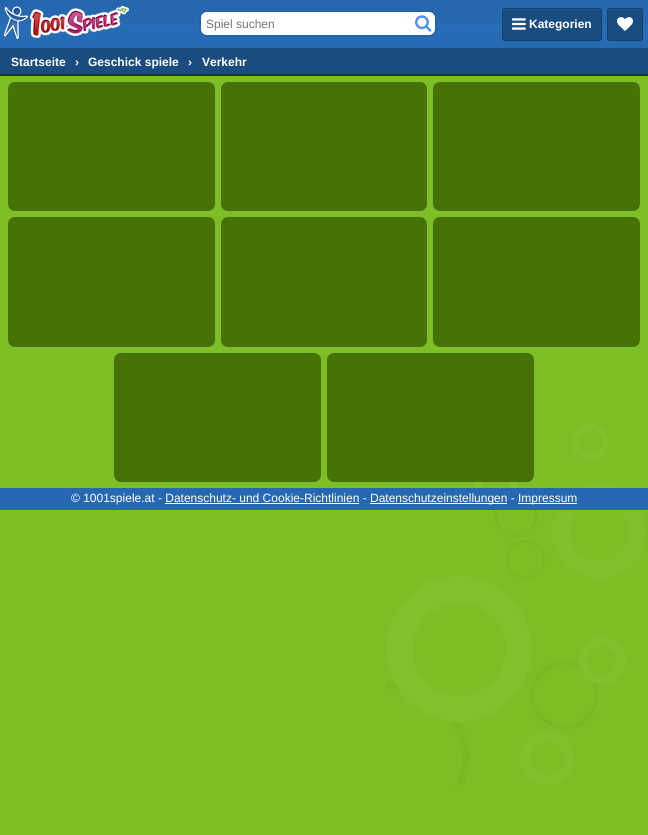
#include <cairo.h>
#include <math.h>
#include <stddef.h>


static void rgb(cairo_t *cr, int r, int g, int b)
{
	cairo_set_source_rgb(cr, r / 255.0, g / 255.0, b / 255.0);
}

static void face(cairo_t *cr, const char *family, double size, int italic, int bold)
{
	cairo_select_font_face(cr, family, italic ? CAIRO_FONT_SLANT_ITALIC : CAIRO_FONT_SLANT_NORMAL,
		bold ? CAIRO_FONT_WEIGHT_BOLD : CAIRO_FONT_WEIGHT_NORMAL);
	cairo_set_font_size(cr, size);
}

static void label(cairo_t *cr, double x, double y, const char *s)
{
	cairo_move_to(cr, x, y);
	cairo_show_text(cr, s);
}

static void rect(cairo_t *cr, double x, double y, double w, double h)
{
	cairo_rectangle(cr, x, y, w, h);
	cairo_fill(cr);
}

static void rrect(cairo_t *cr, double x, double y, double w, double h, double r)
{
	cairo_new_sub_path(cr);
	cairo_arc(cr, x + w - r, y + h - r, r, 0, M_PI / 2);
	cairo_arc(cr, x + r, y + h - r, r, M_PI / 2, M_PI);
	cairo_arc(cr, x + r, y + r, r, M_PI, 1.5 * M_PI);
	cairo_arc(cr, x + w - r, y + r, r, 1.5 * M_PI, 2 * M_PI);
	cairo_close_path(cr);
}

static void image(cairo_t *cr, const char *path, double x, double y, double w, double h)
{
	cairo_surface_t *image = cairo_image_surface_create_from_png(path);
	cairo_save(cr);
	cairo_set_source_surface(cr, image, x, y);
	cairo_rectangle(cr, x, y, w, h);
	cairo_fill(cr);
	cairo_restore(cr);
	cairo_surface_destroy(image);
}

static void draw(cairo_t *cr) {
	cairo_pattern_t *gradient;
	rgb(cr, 125, 189, 37);
	cairo_paint(cr);
	image(cr, "image0.png", 386, 424, 260, 361);
	gradient = cairo_pattern_create_linear(324, 0, 324, 48);
	cairo_pattern_add_color_stop_rgba(gradient, 0, 0.145, 0.404, 0.682, 1);
	cairo_pattern_add_color_stop_rgba(gradient, 0.5, 0.149, 0.412, 0.698, 1);
	cairo_pattern_add_color_stop_rgba(gradient, 0.51, 0.153, 0.427, 0.722, 1);
	cairo_pattern_add_color_stop_rgba(gradient, 1, 0.149, 0.412, 0.698, 1);
	cairo_set_source(cr, gradient);
	cairo_pattern_destroy(gradient);
	rect(cr, 0, 0, 648, 48);
	image(cr, "image1.png", 3, 5, 126, 34);
	rgb(cr, 255, 255, 255);
	rrect(cr, 200, 11, 236, 25, 7);
	cairo_fill_preserve(cr);
	rgb(cr, 36, 100, 170);
	cairo_stroke(cr);
	face(cr, "Liberation Sans", 12, 0, 0);
	rgb(cr, 117, 117, 117);
	label(cr, 206, 28, "Spiel suchen");
	image(cr, "image2.png", 415, 15, 17, 17);
	rgb(cr, 27, 76, 128);
	rrect(cr, 502, 8, 100, 33, 3);
	cairo_fill(cr);
	rgb(cr, 31, 86, 145);
	cairo_new_path(cr);
	cairo_move_to(cr, 505, 10);
	cairo_line_to(cr, 599, 10);
	cairo_curve_to(cr, 600, 10, 601, 11, 601, 12);
	cairo_curve_to(cr, 601, 11, 601, 9, 599, 9);
	cairo_line_to(cr, 521, 9);
	cairo_curve_to(cr, 519, 9, 503, 5, 503, 12);
	cairo_curve_to(cr, 503, 11, 504, 10, 505, 10);
	cairo_close_path(cr);
	cairo_fill(cr);
	rrect(cr, 502.5, 8.5, 99, 32, 2.5);
	rgb(cr, 23, 63, 107);
	cairo_set_line_width(cr, 1);
	cairo_stroke(cr);
	image(cr, "image3.png", 512, 18, 14, 12);
	face(cr, "Liberation Sans", 12, 0, 1);
	rgb(cr, 255, 255, 255);
	label(cr, 529, 28, "Kategorien");
	rgb(cr, 27, 76, 128);
	rrect(cr, 607, 8, 36, 33, 3);
	cairo_fill(cr);
	rgb(cr, 31, 86, 145);
	cairo_new_path(cr);
	cairo_move_to(cr, 610, 10);
	cairo_line_to(cr, 640, 10);
	cairo_curve_to(cr, 641, 10, 642, 11, 642, 12);
	cairo_curve_to(cr, 642, 7.5, 639, 9, 635, 9);
	cairo_line_to(cr, 615, 9);
	cairo_curve_to(cr, 611, 9, 608, 7.5, 608, 12);
	cairo_curve_to(cr, 608, 11, 609, 10, 610, 10);
	cairo_close_path(cr);
	cairo_fill(cr);
	rrect(cr, 607.5, 8.5, 35, 32, 2.5);
	rgb(cr, 23, 63, 107);
	cairo_stroke(cr);
	image(cr, "image4.png", 617, 17, 16, 14);
	rgb(cr, 27, 76, 128);
	rect(cr, 0, 48, 648, 26);
	rgb(cr, 18, 51, 86);
	rect(cr, 0, 74, 648, 2);
	rgb(cr, 255, 255, 255);
	label(cr, 11, 66, "Startseite");
	label(cr, 75, 66, "›");
	label(cr, 88, 66, "Geschick spiele");
	label(cr, 188, 66, "›");
	label(cr, 202, 66, "Verkehr");
	rgb(cr, 70, 114, 8);
	rrect(cr, 9.5, 83.5, 204, 126, 5.5);
	cairo_fill_preserve(cr);
	cairo_set_line_width(cr, 3);
	cairo_stroke(cr);
	rrect(cr, 222.5, 83.5, 203, 126, 5.5);
	cairo_fill_preserve(cr);
	cairo_stroke(cr);
	rrect(cr, 434.5, 83.5, 204, 126, 5.5);
	cairo_fill_preserve(cr);
	cairo_stroke(cr);
	rrect(cr, 9.5, 218.5, 204, 127, 5.5);
	cairo_fill_preserve(cr);
	cairo_stroke(cr);
	rrect(cr, 222.5, 218.5, 203, 127, 5.5);
	cairo_fill_preserve(cr);
	cairo_stroke(cr);
	rrect(cr, 434.5, 218.5, 204, 127, 5.5);
	cairo_fill_preserve(cr);
	cairo_stroke(cr);
	rrect(cr, 115.5, 354.5, 204, 126, 5.5);
	cairo_fill_preserve(cr);
	cairo_stroke(cr);
	rrect(cr, 328.5, 354.5, 204, 126, 5.5);
	cairo_fill_preserve(cr);
	cairo_stroke(cr);
	rgb(cr, 38, 105, 178);
	rect(cr, 0, 488, 648, 22);
	face(cr, "Liberation Sans", 12, 0, 0);
	rgb(cr, 255, 255, 255);
	label(cr, 71, 502, "© 1001spiele.at - Datenschutz- und Cookie-Richtlinien -");
	rect(cr, 370, 503, 137, 1);
	label(cr, 370, 502, "Datenschutzeinstellungen -");
	rect(cr, 518, 503, 59, 1);
	label(cr, 518, 502, "Impressum");
	rect(cr, 165, 503, 194, 1);
}

int main(void) {
	cairo_surface_t *surface = cairo_image_surface_create(CAIRO_FORMAT_RGB24, 648, 835);
	cairo_t *cr = cairo_create(surface);
	cairo_font_options_t *options = cairo_font_options_create();
	cairo_font_options_set_hint_metrics(options, CAIRO_HINT_METRICS_OFF);
	cairo_font_options_set_hint_style(options, CAIRO_HINT_STYLE_NONE);
	cairo_set_font_options(cr, options);
	cairo_set_miter_limit(cr, 4);
	draw(cr);
	cairo_surface_write_to_png(surface, "render.png");
	cairo_font_options_destroy(options);
	cairo_destroy(cr);
	cairo_surface_destroy(surface);
	return 0;
}
